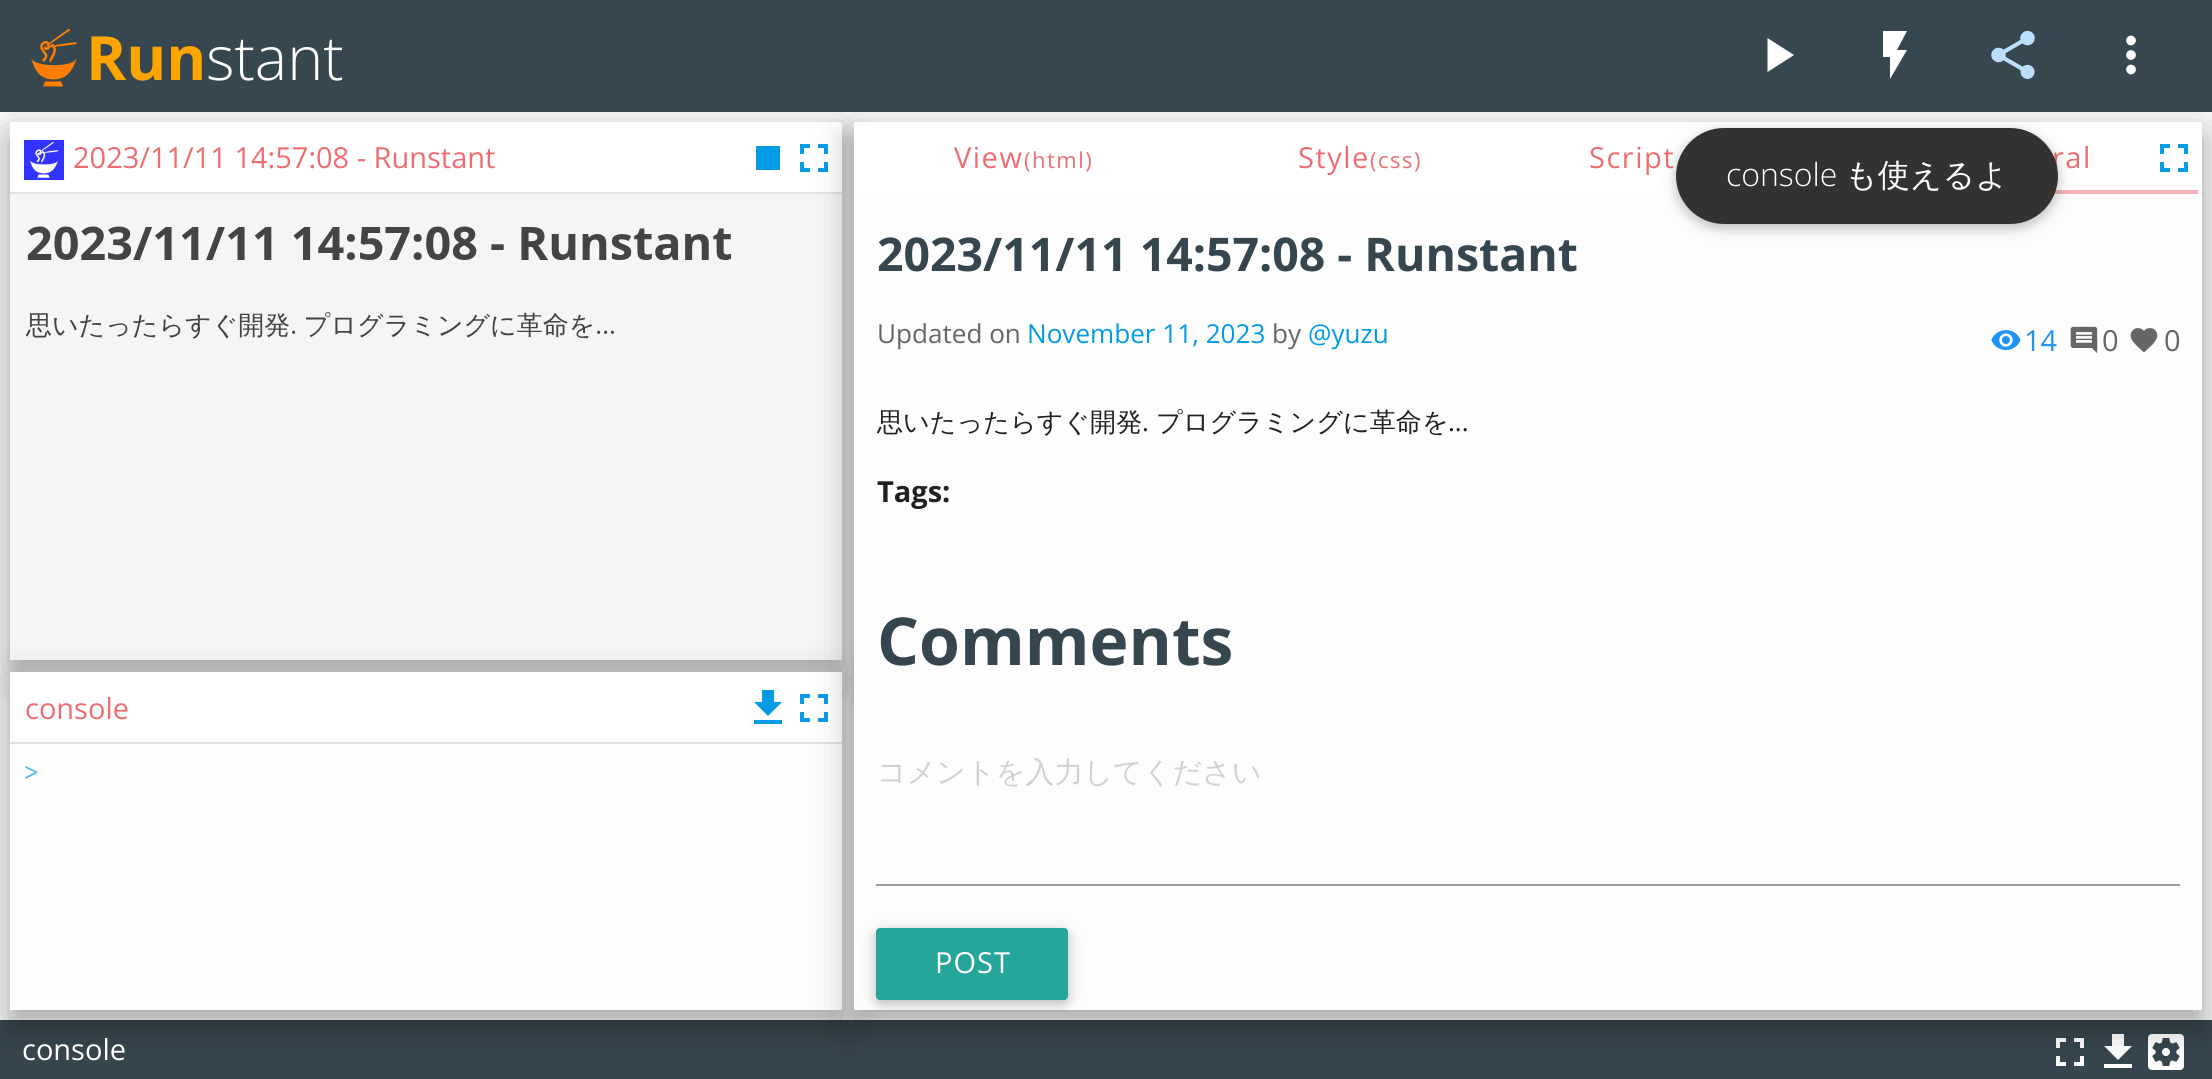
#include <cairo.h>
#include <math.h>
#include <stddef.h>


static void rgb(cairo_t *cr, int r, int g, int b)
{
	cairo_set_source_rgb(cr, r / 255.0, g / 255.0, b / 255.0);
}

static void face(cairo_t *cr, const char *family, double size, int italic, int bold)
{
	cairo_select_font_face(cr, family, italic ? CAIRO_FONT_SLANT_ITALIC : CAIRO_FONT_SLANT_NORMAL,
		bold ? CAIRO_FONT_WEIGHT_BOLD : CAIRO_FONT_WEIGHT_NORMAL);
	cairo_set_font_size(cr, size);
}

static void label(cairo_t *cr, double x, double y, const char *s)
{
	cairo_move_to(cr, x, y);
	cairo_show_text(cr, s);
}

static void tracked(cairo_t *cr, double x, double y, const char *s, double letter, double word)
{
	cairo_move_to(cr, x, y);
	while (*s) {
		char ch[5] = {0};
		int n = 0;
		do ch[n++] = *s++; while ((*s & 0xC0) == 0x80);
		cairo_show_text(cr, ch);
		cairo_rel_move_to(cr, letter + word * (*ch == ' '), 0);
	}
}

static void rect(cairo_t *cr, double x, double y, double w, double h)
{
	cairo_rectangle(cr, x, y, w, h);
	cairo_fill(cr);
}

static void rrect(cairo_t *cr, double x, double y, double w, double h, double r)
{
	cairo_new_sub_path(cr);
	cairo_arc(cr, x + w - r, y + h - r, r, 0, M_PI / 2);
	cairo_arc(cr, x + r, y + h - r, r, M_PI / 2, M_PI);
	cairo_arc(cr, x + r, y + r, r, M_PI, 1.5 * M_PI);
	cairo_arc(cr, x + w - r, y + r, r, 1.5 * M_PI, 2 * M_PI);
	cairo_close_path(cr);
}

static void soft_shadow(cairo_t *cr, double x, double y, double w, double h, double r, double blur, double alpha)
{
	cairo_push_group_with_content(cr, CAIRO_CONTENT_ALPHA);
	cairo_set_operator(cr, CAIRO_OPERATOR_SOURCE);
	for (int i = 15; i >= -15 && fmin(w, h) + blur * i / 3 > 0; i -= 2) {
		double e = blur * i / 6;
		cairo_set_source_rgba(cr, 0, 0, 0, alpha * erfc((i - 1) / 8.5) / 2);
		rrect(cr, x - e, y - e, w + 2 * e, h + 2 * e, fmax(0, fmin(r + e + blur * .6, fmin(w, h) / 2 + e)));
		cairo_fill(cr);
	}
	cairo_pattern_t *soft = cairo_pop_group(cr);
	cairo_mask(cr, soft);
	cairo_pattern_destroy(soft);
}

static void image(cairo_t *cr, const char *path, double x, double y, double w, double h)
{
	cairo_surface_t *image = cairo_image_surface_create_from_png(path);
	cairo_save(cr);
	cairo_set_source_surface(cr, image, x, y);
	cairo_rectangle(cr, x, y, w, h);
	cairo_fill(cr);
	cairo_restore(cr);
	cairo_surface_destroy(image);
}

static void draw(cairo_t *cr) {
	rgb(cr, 250, 250, 250);
	cairo_paint(cr);
	rgb(cr, 55, 71, 79);
	rect(cr, 0, 0, 2212, 112);
	image(cr, "image0.png", 31, 29, 46, 58);
	face(cr, "Open Sans", 61, 0, 1);
	rgb(cr, 255, 165, 0);
	label(cr, 86, 80, "Run");
	face(cr, "Open Sans Light", 61, 0, 0);
	rgb(cr, 255, 255, 255);
	label(cr, 206, 80, "stant");
	cairo_new_path(cr);
	cairo_move_to(cr, 1767.5, 38);
	cairo_line_to(cr, 1794, 55);
	cairo_line_to(cr, 1767.5, 72);
	cairo_close_path(cr);
	cairo_fill(cr);
	cairo_new_path(cr);
	cairo_move_to(cr, 1883, 31);
	cairo_line_to(cr, 1907, 31);
	cairo_line_to(cr, 1897, 50);
	cairo_line_to(cr, 1907, 50);
	cairo_line_to(cr, 1890, 79);
	cairo_line_to(cr, 1890, 57);
	cairo_line_to(cr, 1883, 57);
	cairo_close_path(cr);
	cairo_fill(cr);
	image(cr, "image1.png", 1991, 30, 44, 49);
	image(cr, "image2.png", 2126, 35, 10, 40);
	cairo_save(cr);
	cairo_rectangle(cr, 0, 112, 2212, 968);
	cairo_clip(cr);
	rgb(cr, 0, 0, 0);
	soft_shadow(cr, 10, 134, 832, 538, 0, 20, 0.19);
	cairo_restore(cr);
	rgb(cr, 0, 0, 0);
	soft_shadow(cr, 10, 138, 832, 538, 0, 17, 0.2);
	rgb(cr, 255, 255, 255);
	rect(cr, 10, 122, 832, 70);
	rgb(cr, 226, 226, 226);
	rect(cr, 10, 192, 832, 2);
	image(cr, "image3.png", 24, 140, 40, 40);
	face(cr, "Open Sans", 29, 0, 0);
	rgb(cr, 238, 109, 113);
	label(cr, 73, 168, "2023/11/11 14:57:08 - Runstant");
	rgb(cr, 3, 155, 229);
	rect(cr, 756, 146, 24, 24);
	image(cr, "image4.png", 800, 144, 28, 28);
	image(cr, "image5.png", 10, 194, 832, 466);
	rgb(cr, 54, 70, 78);
	rect(cr, 0, 1020, 2212, 59);
	rgb(cr, 0, 0, 0);
	soft_shadow(cr, 10, 684, 832, 338, 0, 20, 0.19);
	soft_shadow(cr, 10, 688, 832, 338, 0, 17, 0.2);
	rgb(cr, 253, 253, 253);
	rect(cr, 10, 744, 832, 266);
	rgb(cr, 255, 255, 255);
	rect(cr, 10, 672, 832, 70);
	rgb(cr, 226, 226, 226);
	rect(cr, 10, 742, 832, 2);
	image(cr, "image4.png", 800, 694, 28, 28);
	image(cr, "image9.png", 2056, 1038, 28, 28);
	rgb(cr, 255, 255, 255);
	cairo_new_path(cr);
	cairo_move_to(cr, 2104, 1064);
	cairo_line_to(cr, 2132, 1064);
	cairo_line_to(cr, 2132, 1068);
	cairo_line_to(cr, 2104, 1068);
	cairo_close_path(cr);
	cairo_move_to(cr, 2132, 1046);
	cairo_line_to(cr, 2118, 1060);
	cairo_line_to(cr, 2104, 1046);
	cairo_line_to(cr, 2112, 1046);
	cairo_line_to(cr, 2112, 1034);
	cairo_line_to(cr, 2124, 1034);
	cairo_line_to(cr, 2124, 1046);
	cairo_close_path(cr);
	cairo_fill(cr);
	image(cr, "image10.png", 2148, 1034, 36, 36);
	cairo_save(cr);
	cairo_rectangle(cr, 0, 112, 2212, 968);
	cairo_clip(cr);
	rgb(cr, 0, 0, 0);
	soft_shadow(cr, 854, 134, 1348, 888, 0, 20, 0.19);
	cairo_restore(cr);
	rgb(cr, 0, 0, 0);
	soft_shadow(cr, 854, 138, 1348, 888, 0, 17, 0.2);
	rgb(cr, 253, 253, 253);
	rect(cr, 854, 194, 1348, 816);
	rgb(cr, 255, 255, 255);
	rect(cr, 854, 122, 1348, 72);
	rgb(cr, 238, 109, 113);
	tracked(cr, 954, 168, "View", 1.5, 0);
	face(cr, "Open Sans", 22, 0, 0);
	tracked(cr, 1024, 168, "(html)", 1.5, 0);
	face(cr, "Open Sans", 29, 0, 0);
	tracked(cr, 1298, 168, "Style", 1.5, 0);
	face(cr, "Open Sans", 22, 0, 0);
	tracked(cr, 1370, 168, "(css)", 1.5, 0);
	face(cr, "Open Sans", 29, 0, 0);
	tracked(cr, 1589, 168, "Script", 1.5, 0);
	tracked(cr, 2052, 168, "ral", 1.5, 0);
	rgb(cr, 246, 178, 181);
	rect(cr, 2054, 190, 144, 4);
	image(cr, "image4.png", 2160, 144, 28, 28);
	face(cr, "Open Sans", 46.4, 0, 1);
	rgb(cr, 54, 70, 78);
	label(cr, 877, 271, "2023/11/11 14:57:08 - Runstant");
	face(cr, "Open Sans", 26.1, 0, 0);
	rgb(cr, 102, 102, 102);
	label(cr, 877, 343, "Updated on");
	rgb(cr, 3, 155, 229);
	label(cr, 1027, 343, "November 11, 2023");
	rgb(cr, 102, 102, 102);
	label(cr, 1272, 343, "by");
	rgb(cr, 3, 155, 229);
	label(cr, 1308, 343, "@yuzu");
	image(cr, "image6.png", 1991, 330, 30, 20);
	face(cr, "Open Sans", 29, 0, 0);
	rgb(cr, 32, 148, 243);
	label(cr, 2024, 351, "14");
	image(cr, "image7.png", 2070, 326, 28, 28);
	rgb(cr, 102, 102, 102);
	label(cr, 2102, 351, "0");
	image(cr, "image8.png", 2130, 328, 28, 25);
	label(cr, 2164, 351, "0");
	face(cr, "WenQuanYi Zen Hei Medium", 26.1, 0, 0);
	rgb(cr, 33, 33, 33);
	label(cr, 877, 431, "思いたったらすぐ開発");
	face(cr, "Open Sans", 26.1, 0, 0);
	label(cr, 1142, 431, ".");
	face(cr, "WenQuanYi Zen Hei Medium", 26.1, 0, 0);
	label(cr, 1156, 431, "プログラミングに革命を");
	face(cr, "Open Sans", 26.1, 0, 0);
	label(cr, 1448, 431, "...");
	face(cr, "Open Sans", 29, 0, 1);
	label(cr, 877, 502, "Tags:");
	face(cr, "Open Sans", 66, 0, 1);
	rgb(cr, 54, 70, 78);
	label(cr, 877, 665, "Comments");
	rgb(cr, 158, 158, 158);
	rect(cr, 876, 884, 1304, 2);
	face(cr, "WenQuanYi Zen Hei Medium", 29, 0, 0);
	rgb(cr, 209, 209, 209);
	label(cr, 877, 782, "コメントを入力してください");
	cairo_save(cr);
	cairo_rectangle(cr, 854, 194, 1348, 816);
	cairo_clip(cr);
	rgb(cr, 0, 0, 0);
	soft_shadow(cr, 876, 932, 192, 72, 4, 10, 0.12);
	cairo_restore(cr);
	rgb(cr, 0, 0, 0);
	soft_shadow(cr, 876, 932, 192, 72, 4, 5, 0.16);
	rgb(cr, 38, 166, 154);
	rrect(cr, 876, 928, 192, 72, 4);
	cairo_fill(cr);
	face(cr, "Open Sans", 29, 0, 0);
	rgb(cr, 255, 255, 255);
	tracked(cr, 935, 973, "POST", 1, 0);
	rgb(cr, 238, 109, 113);
	label(cr, 25, 719, "console");
	rgb(cr, 3, 155, 229);
	cairo_new_path(cr);
	cairo_move_to(cr, 754, 720);
	cairo_line_to(cr, 782, 720);
	cairo_line_to(cr, 782, 724);
	cairo_line_to(cr, 754, 724);
	cairo_close_path(cr);
	cairo_move_to(cr, 782, 702);
	cairo_line_to(cr, 768, 716);
	cairo_line_to(cr, 754, 702);
	cairo_line_to(cr, 762, 702);
	cairo_line_to(cr, 762, 690);
	cairo_line_to(cr, 774, 690);
	cairo_line_to(cr, 774, 702);
	cairo_close_path(cr);
	cairo_fill(cr);
	face(cr, "Liberation Serif", 26, 0, 1);
	rgb(cr, 71, 180, 235);
	label(cr, 24, 781, ">");
	face(cr, "Open Sans", 29, 0, 0);
	rgb(cr, 255, 255, 255);
	label(cr, 22, 1060, "console");
	rgb(cr, 0, 0, 0);
	soft_shadow(cr, 1676, 132, 382, 96, 48, 10, 0.12);
	soft_shadow(cr, 1676, 132, 382, 96, 48, 5, 0.16);
	rgb(cr, 50, 50, 50);
	rrect(cr, 1676, 128, 382, 96, 48);
	cairo_fill(cr);
	face(cr, "Open Sans Light", 32, 0, 0);
	rgb(cr, 255, 255, 255);
	label(cr, 1726, 186, "console");
	face(cr, "WenQuanYi Zen Hei Medium", 32, 0, 0);
	label(cr, 1845, 186, "も使えるよ");
}

int main(void) {
	cairo_surface_t *surface = cairo_image_surface_create(CAIRO_FORMAT_RGB24, 2212, 1079);
	cairo_t *cr = cairo_create(surface);
	cairo_font_options_t *options = cairo_font_options_create();
	cairo_font_options_set_hint_metrics(options, CAIRO_HINT_METRICS_OFF);
	cairo_font_options_set_hint_style(options, CAIRO_HINT_STYLE_NONE);
	cairo_set_font_options(cr, options);
	cairo_set_miter_limit(cr, 4);
	draw(cr);
	cairo_surface_write_to_png(surface, "render.png");
	cairo_font_options_destroy(options);
	cairo_destroy(cr);
	cairo_surface_destroy(surface);
	return 0;
}
